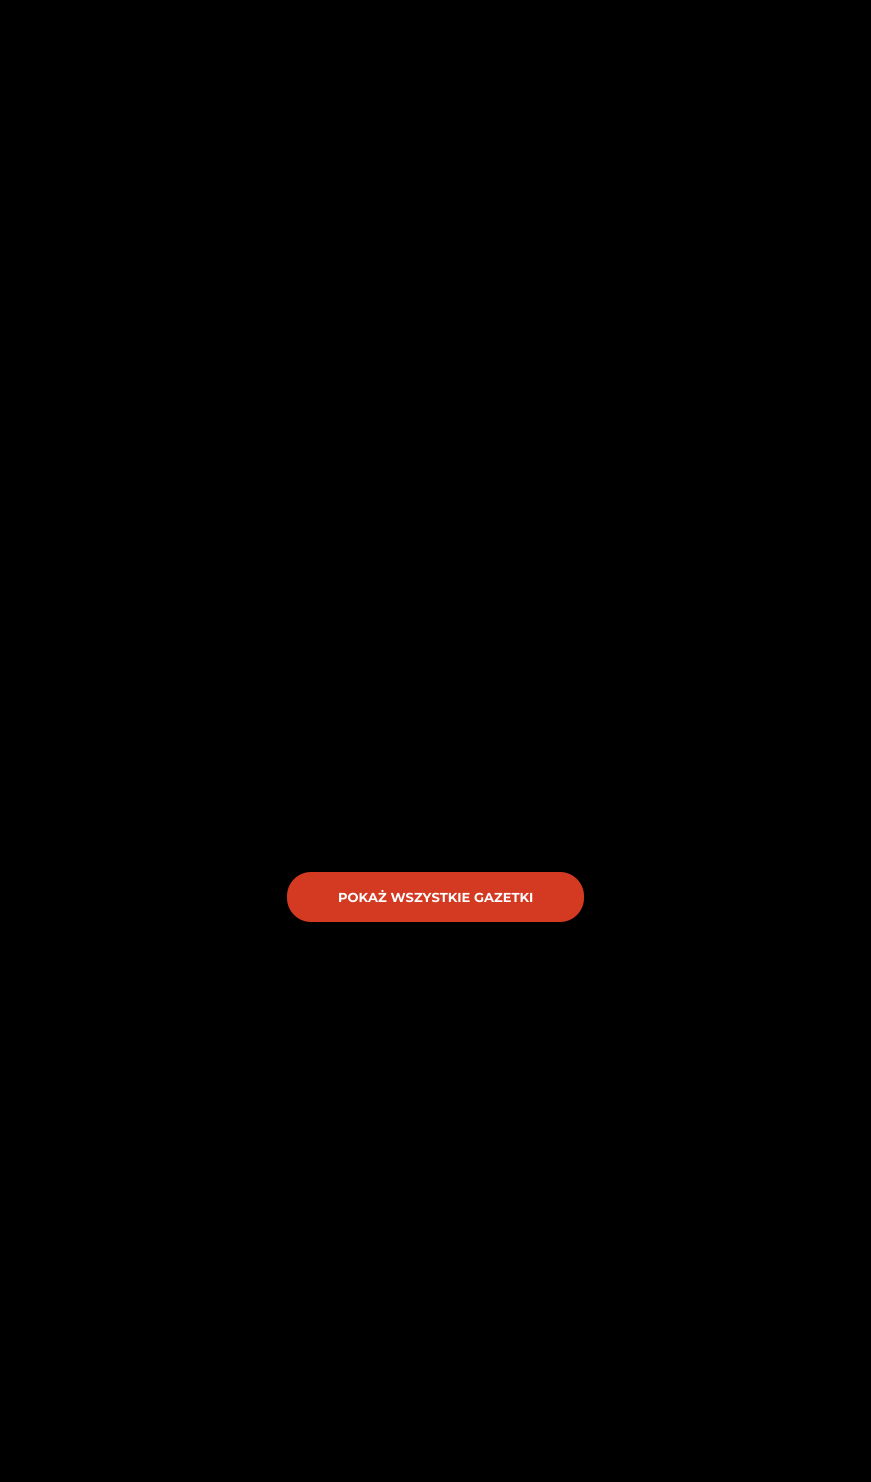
#include <cairo.h>
#include <math.h>
#include <stddef.h>


static void rgb(cairo_t *cr, int r, int g, int b)
{
	cairo_set_source_rgb(cr, r / 255.0, g / 255.0, b / 255.0);
}

static void face(cairo_t *cr, const char *family, double size, int italic, int bold)
{
	cairo_select_font_face(cr, family, italic ? CAIRO_FONT_SLANT_ITALIC : CAIRO_FONT_SLANT_NORMAL,
		bold ? CAIRO_FONT_WEIGHT_BOLD : CAIRO_FONT_WEIGHT_NORMAL);
	cairo_set_font_size(cr, size);
}

static void label(cairo_t *cr, double x, double y, const char *s)
{
	cairo_move_to(cr, x, y);
	cairo_show_text(cr, s);
}

static void rrect(cairo_t *cr, double x, double y, double w, double h, double r)
{
	cairo_new_sub_path(cr);
	cairo_arc(cr, x + w - r, y + h - r, r, 0, M_PI / 2);
	cairo_arc(cr, x + r, y + h - r, r, M_PI / 2, M_PI);
	cairo_arc(cr, x + r, y + r, r, M_PI, 1.5 * M_PI);
	cairo_arc(cr, x + w - r, y + r, r, 1.5 * M_PI, 2 * M_PI);
	cairo_close_path(cr);
}

static void draw(cairo_t *cr) {
	rgb(cr, 0, 0, 0);
	cairo_paint(cr);
	rgb(cr, 212, 57, 33);
	rrect(cr, 287, 872, 297, 50, 24);
	cairo_fill(cr);
	face(cr, "Montserrat", 13, 0, 1);
	rgb(cr, 255, 255, 255);
	label(cr, 338, 902, "POKAŻ WSZYSTKIE GAZETKI");
}

int main(void) {
	cairo_surface_t *surface = cairo_image_surface_create(CAIRO_FORMAT_RGB24, 871, 1482);
	cairo_t *cr = cairo_create(surface);
	cairo_font_options_t *options = cairo_font_options_create();
	cairo_font_options_set_hint_metrics(options, CAIRO_HINT_METRICS_OFF);
	cairo_font_options_set_hint_style(options, CAIRO_HINT_STYLE_NONE);
	cairo_set_font_options(cr, options);
	cairo_set_miter_limit(cr, 4);
	draw(cr);
	cairo_surface_write_to_png(surface, "render.png");
	cairo_font_options_destroy(options);
	cairo_destroy(cr);
	cairo_surface_destroy(surface);
	return 0;
}
